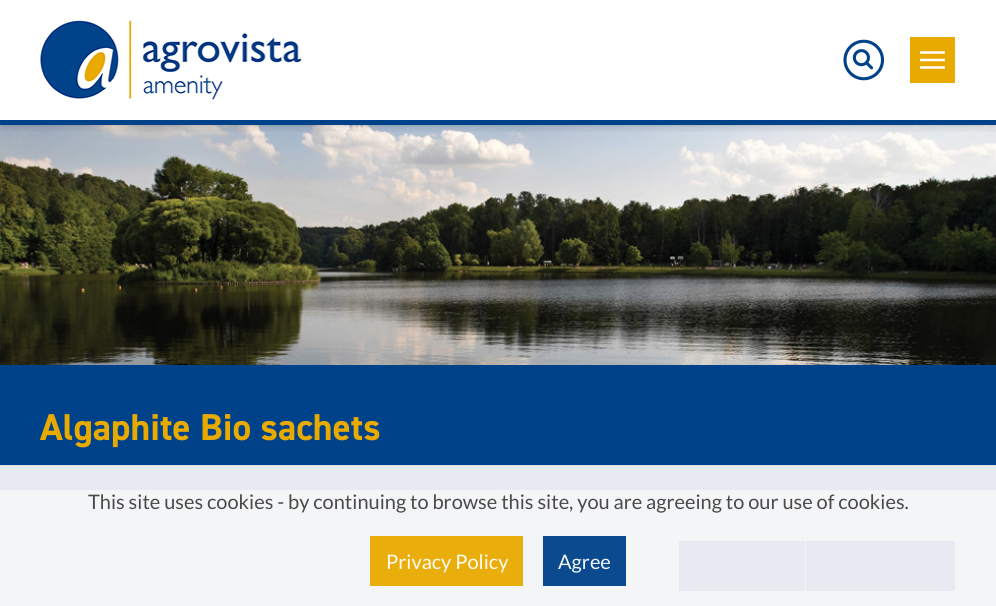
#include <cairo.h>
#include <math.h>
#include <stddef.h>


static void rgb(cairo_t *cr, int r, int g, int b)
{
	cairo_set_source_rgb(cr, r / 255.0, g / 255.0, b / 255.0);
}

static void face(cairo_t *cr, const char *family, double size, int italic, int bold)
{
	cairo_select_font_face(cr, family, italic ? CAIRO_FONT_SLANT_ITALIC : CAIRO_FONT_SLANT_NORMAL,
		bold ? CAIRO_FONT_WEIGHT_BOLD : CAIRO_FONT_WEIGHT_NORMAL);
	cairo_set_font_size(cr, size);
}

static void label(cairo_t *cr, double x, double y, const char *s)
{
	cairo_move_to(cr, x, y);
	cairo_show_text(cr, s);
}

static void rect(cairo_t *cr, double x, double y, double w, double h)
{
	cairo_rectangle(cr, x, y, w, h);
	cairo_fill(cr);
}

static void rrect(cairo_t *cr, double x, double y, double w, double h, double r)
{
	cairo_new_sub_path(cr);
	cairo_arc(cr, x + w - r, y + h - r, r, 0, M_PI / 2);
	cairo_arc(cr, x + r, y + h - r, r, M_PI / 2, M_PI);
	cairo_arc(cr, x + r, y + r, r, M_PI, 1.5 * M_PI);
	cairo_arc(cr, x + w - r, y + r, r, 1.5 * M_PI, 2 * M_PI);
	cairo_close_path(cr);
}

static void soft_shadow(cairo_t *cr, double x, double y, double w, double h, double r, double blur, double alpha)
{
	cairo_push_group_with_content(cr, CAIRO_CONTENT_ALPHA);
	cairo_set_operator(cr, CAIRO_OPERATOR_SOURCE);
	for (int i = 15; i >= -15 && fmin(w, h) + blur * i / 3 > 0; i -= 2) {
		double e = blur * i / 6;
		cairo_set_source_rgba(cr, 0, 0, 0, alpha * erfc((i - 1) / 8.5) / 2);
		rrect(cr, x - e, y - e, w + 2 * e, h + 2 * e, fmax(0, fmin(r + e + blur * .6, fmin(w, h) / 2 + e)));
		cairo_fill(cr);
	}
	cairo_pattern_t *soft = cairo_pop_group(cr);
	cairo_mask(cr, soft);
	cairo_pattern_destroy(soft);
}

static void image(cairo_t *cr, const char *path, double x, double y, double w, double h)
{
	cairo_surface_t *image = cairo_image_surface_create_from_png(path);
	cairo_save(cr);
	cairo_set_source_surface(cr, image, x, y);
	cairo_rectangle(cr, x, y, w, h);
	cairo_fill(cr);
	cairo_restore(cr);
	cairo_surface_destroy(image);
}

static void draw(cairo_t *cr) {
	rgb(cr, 255, 255, 255);
	cairo_paint(cr);
	rgb(cr, 244, 245, 246);
	rect(cr, 0, 490, 996, 116);
	image(cr, "image3.png", 0, 125, 996, 240);
	cairo_save(cr);
	cairo_rectangle(cr, 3, 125, 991, 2);
	cairo_clip(cr);
	rgb(cr, 0, 0, 0);
	soft_shadow(cr, 3, 5, 991, 120, 0, 2.5, 0.1);
	cairo_restore(cr);
	cairo_save(cr);
	cairo_rectangle(cr, 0, 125, 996, 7);
	cairo_clip(cr);
	rgb(cr, 0, 0, 0);
	soft_shadow(cr, 1, 6, 994, 123, 0, 4, 0.1);
	cairo_restore(cr);
	rgb(cr, 0, 66, 137);
	rect(cr, 0, 120, 996, 5);
	image(cr, "image0.png", 40, 20, 262, 80);
	image(cr, "image1.png", 843, 39, 42, 42);
	rgb(cr, 233, 170, 0);
	rect(cr, 910, 37, 45, 46);
	image(cr, "image2.png", 920, 51, 25, 18);
	rgb(cr, 0, 66, 137);
	rect(cr, 0, 365, 996, 100);
	rgb(cr, 231, 235, 241);
	rect(cr, 0, 466, 996, 24);
	face(cr, "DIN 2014", 37.5, 0, 1);
	rgb(cr, 233, 170, 0);
	label(cr, 40, 440, "Algaphite Bio sachets");
	rgb(cr, 218, 223, 230);
	rect(cr, 0, 465, 996, 1);
	face(cr, "Lato", 20, 0, 0);
	rgb(cr, 74, 74, 75);
	label(cr, 88, 509, "This site uses cookies - by continuing to browse this site, you are agreeing to our use of cookies.");
	cairo_set_source_rgba(cr, 0.914, 0.667, 0, 0.95);
	rect(cr, 370, 536, 153, 50);
	rgb(cr, 254, 251, 243);
	label(cr, 386, 569, "Privacy Policy");
	cairo_set_source_rgba(cr, 0, 0.259, 0.537, 0.95);
	rect(cr, 543, 536, 83, 50);
	rgb(cr, 243, 246, 249);
	label(cr, 558, 569, "Agree");
	rgb(cr, 231, 235, 241);
	rect(cr, 679, 541, 126, 50);
	rect(cr, 806, 541, 149, 50);
}

int main(void) {
	cairo_surface_t *surface = cairo_image_surface_create(CAIRO_FORMAT_RGB24, 996, 606);
	cairo_t *cr = cairo_create(surface);
	cairo_font_options_t *options = cairo_font_options_create();
	cairo_font_options_set_hint_metrics(options, CAIRO_HINT_METRICS_OFF);
	cairo_font_options_set_hint_style(options, CAIRO_HINT_STYLE_NONE);
	cairo_set_font_options(cr, options);
	cairo_set_miter_limit(cr, 4);
	draw(cr);
	cairo_surface_write_to_png(surface, "render.png");
	cairo_font_options_destroy(options);
	cairo_destroy(cr);
	cairo_surface_destroy(surface);
	return 0;
}
